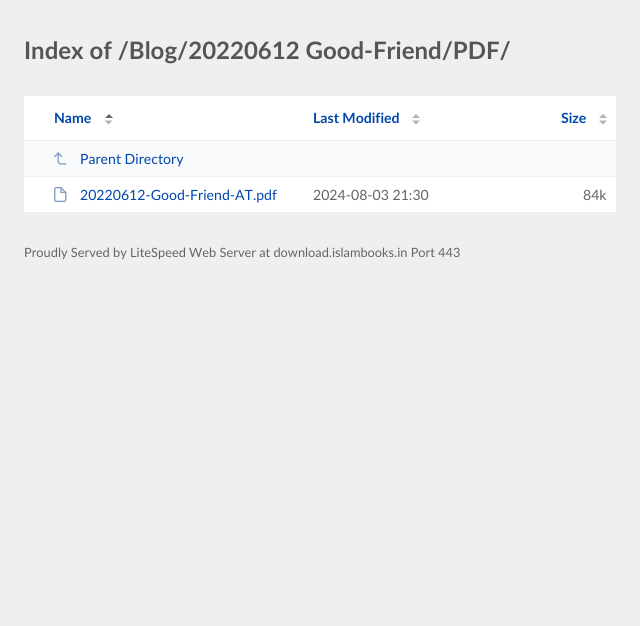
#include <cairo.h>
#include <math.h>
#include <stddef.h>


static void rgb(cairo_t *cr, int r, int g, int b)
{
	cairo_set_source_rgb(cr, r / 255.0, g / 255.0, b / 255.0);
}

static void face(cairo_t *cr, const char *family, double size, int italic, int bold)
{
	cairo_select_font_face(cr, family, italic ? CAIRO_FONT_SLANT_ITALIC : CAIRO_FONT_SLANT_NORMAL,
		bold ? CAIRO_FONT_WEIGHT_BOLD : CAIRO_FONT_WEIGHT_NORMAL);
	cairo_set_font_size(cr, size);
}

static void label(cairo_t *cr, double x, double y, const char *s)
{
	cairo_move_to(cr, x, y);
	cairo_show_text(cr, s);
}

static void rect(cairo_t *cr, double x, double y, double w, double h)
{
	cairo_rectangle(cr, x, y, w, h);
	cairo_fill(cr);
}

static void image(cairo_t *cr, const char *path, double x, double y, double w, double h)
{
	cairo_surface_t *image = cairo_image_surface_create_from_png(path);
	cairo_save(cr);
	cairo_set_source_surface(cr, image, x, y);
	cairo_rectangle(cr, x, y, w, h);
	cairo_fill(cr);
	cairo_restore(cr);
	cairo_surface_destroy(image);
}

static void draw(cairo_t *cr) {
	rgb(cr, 237, 239, 240);
	cairo_paint(cr);
	face(cr, "Lato", 24, 0, 1);
	rgb(cr, 85, 85, 85);
	label(cr, 24, 59, "Index of /Blog/20220612 Good-Friend/PDF/");
	rgb(cr, 255, 255, 255);
	rect(cr, 24, 96, 592, 116);
	face(cr, "Lato", 14.1, 0, 1);
	rgb(cr, 0, 71, 171);
	label(cr, 54, 123, "Name");
	rgb(cr, 102, 102, 102);
	cairo_new_path(cr);
	cairo_move_to(cr, 113, 118);
	cairo_line_to(cr, 105, 118);
	cairo_line_to(cr, 109, 114);
	cairo_close_path(cr);
	cairo_fill(cr);
	rgb(cr, 179, 179, 179);
	cairo_new_path(cr);
	cairo_move_to(cr, 104.5, 120.5);
	cairo_line_to(cr, 112.5, 120.5);
	cairo_line_to(cr, 108.5, 124.5);
	cairo_close_path(cr);
	cairo_fill(cr);
	rgb(cr, 0, 71, 171);
	label(cr, 313, 123, "Last Modified");
	rgb(cr, 179, 179, 179);
	cairo_new_path(cr);
	cairo_move_to(cr, 420, 118);
	cairo_line_to(cr, 412, 118);
	cairo_line_to(cr, 416, 114);
	cairo_close_path(cr);
	cairo_move_to(cr, 412, 120.5);
	cairo_line_to(cr, 420, 120.5);
	cairo_line_to(cr, 416, 124.5);
	cairo_close_path(cr);
	cairo_fill(cr);
	rgb(cr, 0, 71, 171);
	label(cr, 561, 123, "Size");
	rgb(cr, 179, 179, 179);
	cairo_new_path(cr);
	cairo_move_to(cr, 607, 118);
	cairo_line_to(cr, 599, 118);
	cairo_line_to(cr, 603, 114);
	cairo_close_path(cr);
	cairo_move_to(cr, 599, 120.5);
	cairo_line_to(cr, 607, 120.5);
	cairo_line_to(cr, 603, 124.5);
	cairo_close_path(cr);
	cairo_fill(cr);
	rgb(cr, 248, 250, 251);
	rect(cr, 24, 141, 592, 35);
	rgb(cr, 237, 239, 240);
	rect(cr, 24, 140, 592, 1);
	rect(cr, 24, 176, 592, 1);
	image(cr, "image0.png", 54, 152, 13, 13);
	face(cr, "Lato", 14.1, 0, 0);
	rgb(cr, 0, 71, 171);
	label(cr, 80, 164, "Parent Directory");
	image(cr, "image1.png", 54, 186, 13, 17);
	label(cr, 80, 200, "20220612-Good-Friend-AT.pdf");
	rgb(cr, 100, 100, 100);
	label(cr, 313, 200, "2024-08-03 21:30");
	label(cr, 583, 200, "84k");
	face(cr, "Lato", 12.8, 0, 0);
	label(cr, 24, 257, "Proudly Served by LiteSpeed Web Server at download.islambooks.in Port 443");
}

int main(void) {
	cairo_surface_t *surface = cairo_image_surface_create(CAIRO_FORMAT_RGB24, 640, 626);
	cairo_t *cr = cairo_create(surface);
	cairo_font_options_t *options = cairo_font_options_create();
	cairo_font_options_set_hint_metrics(options, CAIRO_HINT_METRICS_OFF);
	cairo_font_options_set_hint_style(options, CAIRO_HINT_STYLE_NONE);
	cairo_set_font_options(cr, options);
	cairo_set_miter_limit(cr, 4);
	draw(cr);
	cairo_surface_write_to_png(surface, "render.png");
	cairo_font_options_destroy(options);
	cairo_destroy(cr);
	cairo_surface_destroy(surface);
	return 0;
}
